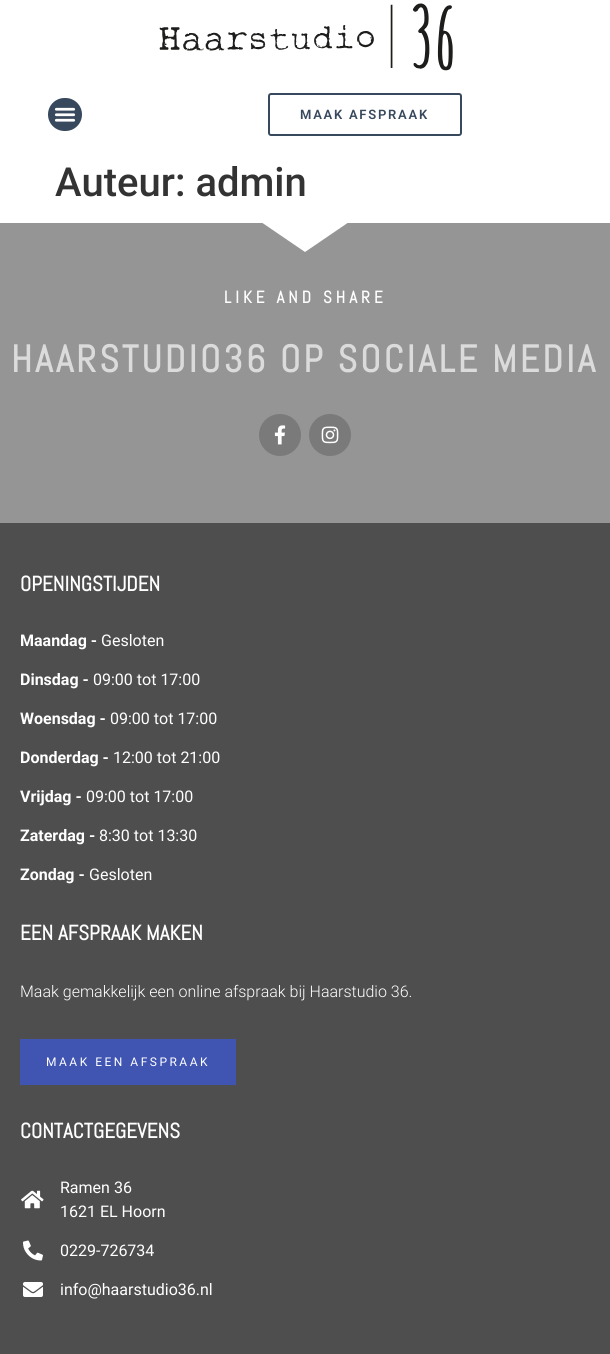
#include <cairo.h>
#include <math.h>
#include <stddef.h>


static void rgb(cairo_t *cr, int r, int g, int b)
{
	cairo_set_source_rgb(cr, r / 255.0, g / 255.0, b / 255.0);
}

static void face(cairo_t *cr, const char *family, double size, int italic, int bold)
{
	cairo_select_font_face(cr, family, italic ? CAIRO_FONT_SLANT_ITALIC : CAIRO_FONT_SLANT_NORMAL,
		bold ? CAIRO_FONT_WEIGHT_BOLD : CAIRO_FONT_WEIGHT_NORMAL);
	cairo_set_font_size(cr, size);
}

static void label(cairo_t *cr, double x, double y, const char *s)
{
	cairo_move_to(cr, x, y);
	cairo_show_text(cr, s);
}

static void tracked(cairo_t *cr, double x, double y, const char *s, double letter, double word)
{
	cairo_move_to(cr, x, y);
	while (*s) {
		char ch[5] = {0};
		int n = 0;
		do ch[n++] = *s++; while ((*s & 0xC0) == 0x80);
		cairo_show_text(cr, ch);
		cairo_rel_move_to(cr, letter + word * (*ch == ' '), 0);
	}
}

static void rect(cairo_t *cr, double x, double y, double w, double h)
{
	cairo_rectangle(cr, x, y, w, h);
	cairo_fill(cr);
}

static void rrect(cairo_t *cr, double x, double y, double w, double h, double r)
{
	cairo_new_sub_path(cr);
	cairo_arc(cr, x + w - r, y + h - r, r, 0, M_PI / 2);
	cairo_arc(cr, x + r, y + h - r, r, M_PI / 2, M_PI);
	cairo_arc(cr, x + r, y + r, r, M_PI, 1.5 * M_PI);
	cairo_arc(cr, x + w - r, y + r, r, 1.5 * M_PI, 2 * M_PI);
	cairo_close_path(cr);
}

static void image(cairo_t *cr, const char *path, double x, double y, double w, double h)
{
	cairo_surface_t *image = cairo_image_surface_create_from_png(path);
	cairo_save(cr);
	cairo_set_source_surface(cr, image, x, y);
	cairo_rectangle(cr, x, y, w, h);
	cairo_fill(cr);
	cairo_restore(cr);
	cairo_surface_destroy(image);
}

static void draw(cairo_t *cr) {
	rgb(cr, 255, 255, 255);
	cairo_paint(cr);
	image(cr, "image0.png", 159, 3, 294, 68);
	rgb(cr, 56, 73, 94);
	rrect(cr, 48, 98, 34, 33, 16.5);
	cairo_fill(cr);
	image(cr, "image1.png", 54, 107, 22, 15);
	rrect(cr, 269, 94, 192, 41, 2);
	cairo_stroke(cr);
	face(cr, "Roboto SemiBold", 13, 0, 0);
	tracked(cr, 300, 119, "MAAK AFSPRAAK", 1.75, 0);
	face(cr, "Roboto Medium", 40, 0, 0);
	rgb(cr, 51, 51, 51);
	label(cr, 55, 196, "Auteur: admin");
	rgb(cr, 149, 149, 149);
	rect(cr, 0, 223, 610, 300);
	rgb(cr, 255, 255, 255);
	cairo_new_path(cr);
	cairo_move_to(cr, 305, 252);
	cairo_line_to(cr, 261, 222);
	cairo_line_to(cr, 349, 222);
	cairo_close_path(cr);
	cairo_fill(cr);
	face(cr, "Abel", 17, 0, 1);
	tracked(cr, 224, 303, "LIKE AND SHARE", 4, 0);
	face(cr, "Abel", 38, 0, 1);
	rgb(cr, 219, 219, 219);
	tracked(cr, 11, 372, "HAARSTUDIO36 OP SOCIALE MEDIA", 3, 0);
	rgb(cr, 122, 122, 122);
	cairo_new_path(cr);
	cairo_arc(cr, 280, 435, 21, 0, 2 * M_PI);
	cairo_fill(cr);
	image(cr, "image2.png", 274, 425, 12, 20);
	cairo_arc(cr, 330, 435, 21, 0, 2 * M_PI);
	cairo_fill(cr);
	image(cr, "image3.png", 321, 426, 18, 18);
	rgb(cr, 78, 78, 78);
	rect(cr, 0, 523, 610, 831);
	face(cr, "Abel", 21, 0, 1);
	rgb(cr, 255, 255, 255);
	label(cr, 20, 591, "OPENINGSTIJDEN");
	face(cr, "Roboto", 16, 0, 1);
	label(cr, 20, 646, "Maandag -");
	face(cr, "Roboto", 16, 0, 0);
	label(cr, 101, 646, "Gesloten");
	face(cr, "Roboto", 16, 0, 1);
	label(cr, 20, 685, "Dinsdag -");
	face(cr, "Roboto", 16, 0, 0);
	label(cr, 93, 685, "09:00 tot 17:00");
	face(cr, "Roboto", 16, 0, 1);
	label(cr, 20, 724, "Woensdag -");
	face(cr, "Roboto", 16, 0, 0);
	label(cr, 110, 724, "09:00 tot 17:00");
	face(cr, "Roboto", 16, 0, 1);
	label(cr, 20, 763, "Donderdag -");
	face(cr, "Roboto", 16, 0, 0);
	label(cr, 113, 763, "12:00 tot 21:00");
	face(cr, "Roboto", 16, 0, 1);
	label(cr, 20, 802, "Vrijdag -");
	face(cr, "Roboto", 16, 0, 0);
	label(cr, 86, 802, "09:00 tot 17:00");
	face(cr, "Roboto", 16, 0, 1);
	label(cr, 20, 841, "Zaterdag -");
	face(cr, "Roboto", 16, 0, 0);
	label(cr, 99, 841, "8:30 tot 13:30");
	face(cr, "Roboto", 16, 0, 1);
	label(cr, 20, 880, "Zondag -");
	face(cr, "Roboto", 16, 0, 0);
	label(cr, 89, 880, "Gesloten");
	face(cr, "Abel", 21, 0, 1);
	label(cr, 20, 940, "EEN AFSPRAAK MAKEN");
	face(cr, "Roboto Light", 16, 0, 0);
	label(cr, 20, 997, "Maak gemakkelijk een online afspraak bij Haarstudio 36.");
	rgb(cr, 64, 84, 178);
	rect(cr, 26, 1040, 204, 45);
	rect(cr, 20, 1039, 216, 1);
	rect(cr, 230, 1039, 6, 46);
	rect(cr, 20, 1039, 6, 46);
	face(cr, "Roboto", 12, 0, 0);
	rgb(cr, 255, 255, 255);
	tracked(cr, 46, 1066, "MAAK EEN AFSPRAAK", 2.5, 0);
	face(cr, "Abel", 21, 0, 1);
	label(cr, 20, 1138, "CONTACTGEGEVENS");
	image(cr, "image4.png", 21, 1190, 23, 19);
	face(cr, "Roboto", 16, 0, 0);
	label(cr, 60, 1193, "Ramen 36");
	label(cr, 60, 1217, "1621 EL Hoorn");
	image(cr, "image5.png", 23, 1240, 20, 21);
	label(cr, 60, 1256, "0229-726734");
	image(cr, "image6.png", 23, 1282, 20, 15);
	label(cr, 60, 1295, "info@haarstudio36.nl");
}

int main(void) {
	cairo_surface_t *surface = cairo_image_surface_create(CAIRO_FORMAT_RGB24, 610, 1354);
	cairo_t *cr = cairo_create(surface);
	cairo_font_options_t *options = cairo_font_options_create();
	cairo_font_options_set_hint_metrics(options, CAIRO_HINT_METRICS_OFF);
	cairo_font_options_set_hint_style(options, CAIRO_HINT_STYLE_NONE);
	cairo_set_font_options(cr, options);
	cairo_set_miter_limit(cr, 4);
	draw(cr);
	cairo_surface_write_to_png(surface, "render.png");
	cairo_font_options_destroy(options);
	cairo_destroy(cr);
	cairo_surface_destroy(surface);
	return 0;
}
